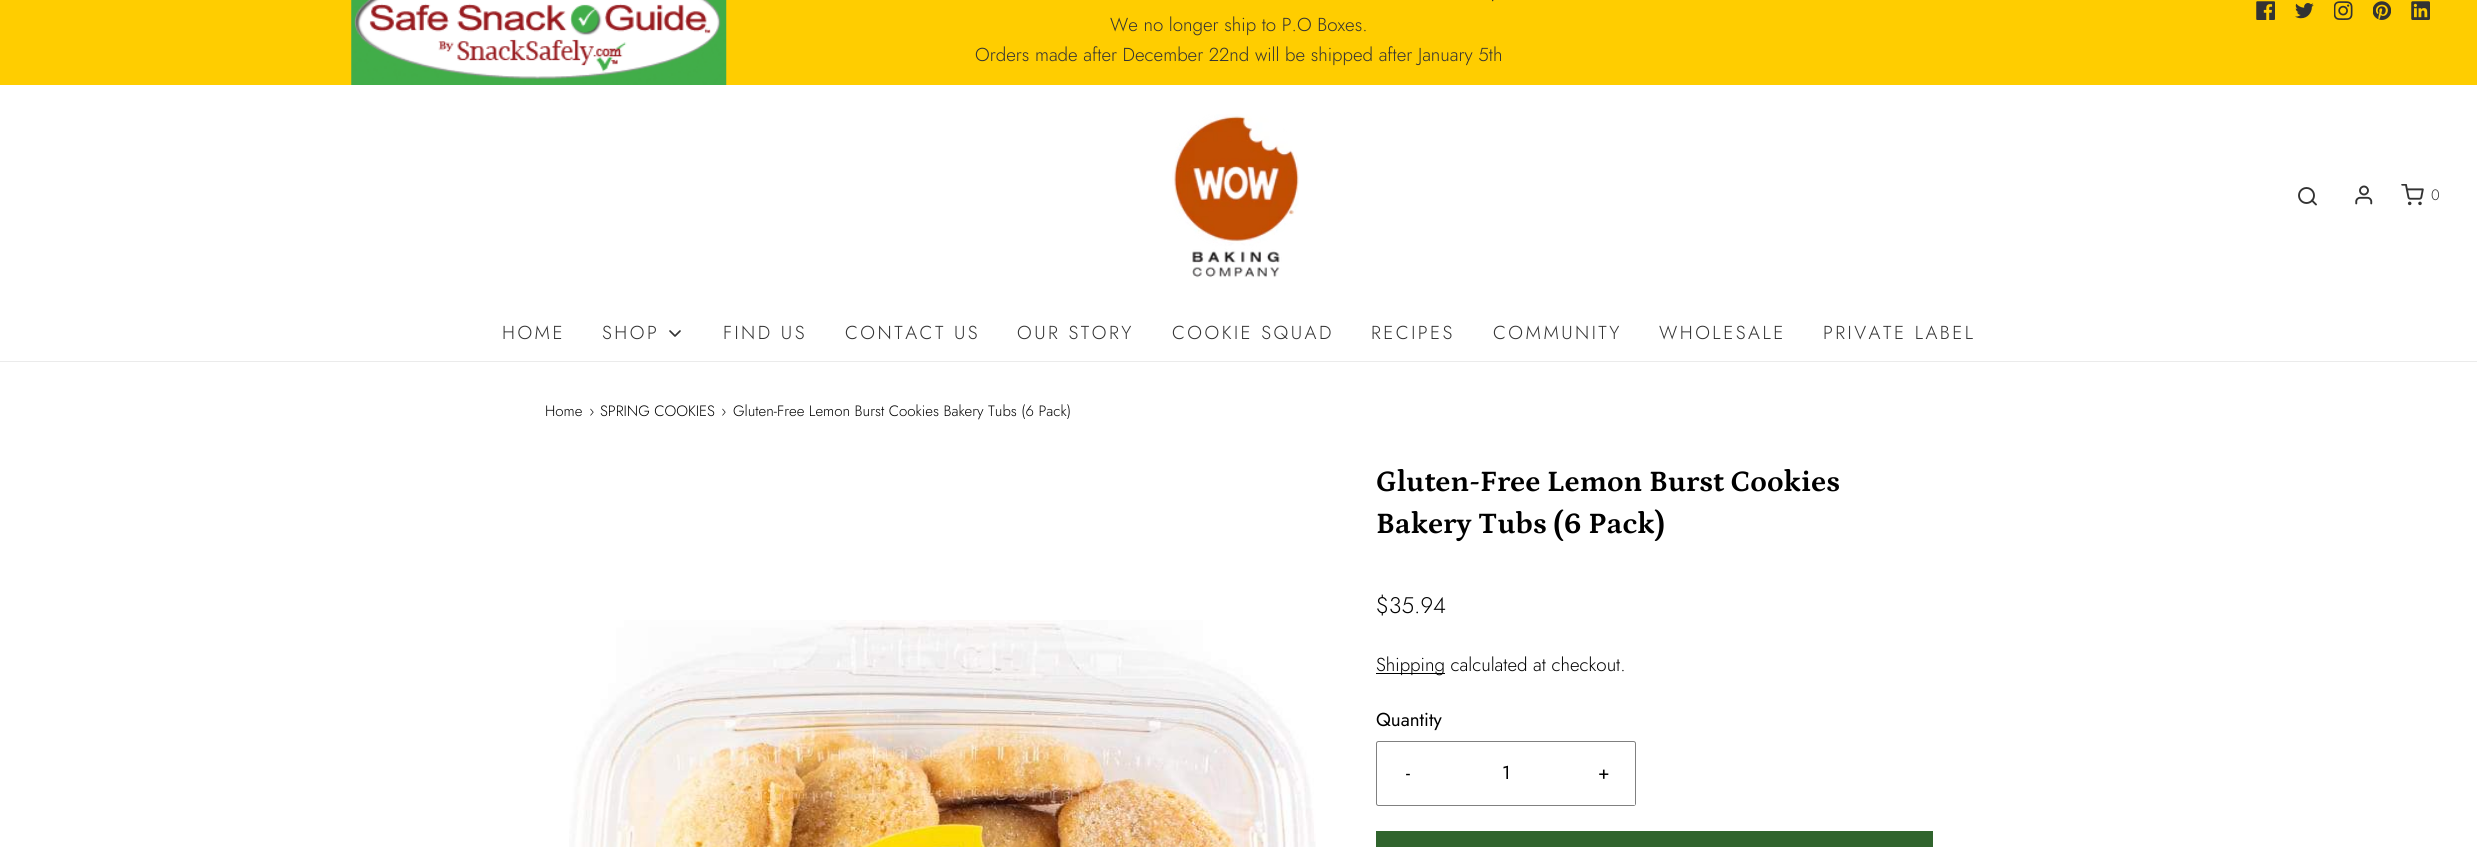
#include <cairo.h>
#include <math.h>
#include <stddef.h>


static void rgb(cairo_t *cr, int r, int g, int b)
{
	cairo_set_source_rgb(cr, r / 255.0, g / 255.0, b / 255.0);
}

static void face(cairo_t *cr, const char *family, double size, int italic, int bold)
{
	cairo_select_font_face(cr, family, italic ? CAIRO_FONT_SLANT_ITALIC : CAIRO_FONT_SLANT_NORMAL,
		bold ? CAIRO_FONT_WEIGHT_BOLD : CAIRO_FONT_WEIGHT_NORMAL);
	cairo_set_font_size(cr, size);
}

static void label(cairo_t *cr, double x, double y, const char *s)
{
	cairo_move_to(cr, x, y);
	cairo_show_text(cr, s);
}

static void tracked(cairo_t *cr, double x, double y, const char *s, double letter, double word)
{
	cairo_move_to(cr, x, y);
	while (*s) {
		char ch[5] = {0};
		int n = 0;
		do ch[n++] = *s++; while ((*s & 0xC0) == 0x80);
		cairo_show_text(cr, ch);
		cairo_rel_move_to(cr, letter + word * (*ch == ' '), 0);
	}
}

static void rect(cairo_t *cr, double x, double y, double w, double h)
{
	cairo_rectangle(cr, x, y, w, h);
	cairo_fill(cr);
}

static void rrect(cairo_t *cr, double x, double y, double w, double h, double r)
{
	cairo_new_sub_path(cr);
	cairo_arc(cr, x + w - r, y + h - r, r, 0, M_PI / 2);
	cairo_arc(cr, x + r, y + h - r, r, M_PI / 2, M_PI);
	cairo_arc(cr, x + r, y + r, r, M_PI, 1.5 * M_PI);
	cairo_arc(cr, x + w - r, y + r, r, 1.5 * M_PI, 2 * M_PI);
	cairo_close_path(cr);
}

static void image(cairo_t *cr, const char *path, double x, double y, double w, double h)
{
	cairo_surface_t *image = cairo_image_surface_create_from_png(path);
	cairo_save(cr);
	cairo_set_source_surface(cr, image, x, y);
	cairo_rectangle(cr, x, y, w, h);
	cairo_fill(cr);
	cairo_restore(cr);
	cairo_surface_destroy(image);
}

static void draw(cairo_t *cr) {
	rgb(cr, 255, 255, 255);
	cairo_paint(cr);
	rgb(cr, 255, 205, 0);
	rect(cr, 0, 0, 2477, 85);
	image(cr, "image0.png", 351, 0, 376, 85);
	face(cr, "Jost Light", 18.75, 0, 0);
	rgb(cr, 51, 51, 51);
	label(cr, 1490, 1, ".");
	label(cr, 1110, 31, "We no longer ship to P.O Boxes.");
	label(cr, 975, 61, "Orders made after December 22nd will be shipped after January 5th");
	image(cr, "image1.png", 2256, 1, 19, 19);
	image(cr, "image2.png", 2295, 3, 19, 16);
	image(cr, "image3.png", 2334, 1, 19, 19);
	image(cr, "image4.png", 2373, 1, 18, 19);
	image(cr, "image5.png", 2411, 1, 19, 19);
	rgb(cr, 235, 235, 235);
	rect(cr, 0, 361, 2477, 1);
	image(cr, "image6.png", 1172, 114, 127, 164);
	cairo_arc(cr, 2306.5, 195.5, 7.5, 0, 2 * M_PI);
	rgb(cr, 51, 51, 51);
	cairo_set_line_width(cr, 1.9);
	cairo_stroke(cr);
	cairo_new_path(cr);
	cairo_move_to(cr, 2316, 204.5);
	cairo_line_to(cr, 2312, 200.5);
	cairo_set_line_cap(cr, CAIRO_LINE_CAP_ROUND);
	cairo_set_line_join(cr, CAIRO_LINE_JOIN_ROUND);
	cairo_stroke(cr);
	image(cr, "image7.png", 2355, 185, 18, 20);
	image(cr, "image8.png", 2401, 184, 23, 22);
	face(cr, "Jost Light", 15, 0, 0);
	label(cr, 2431, 200, "0");
	face(cr, "Jost Light", 18.75, 0, 0);
	tracked(cr, 502, 339, "HOME", 2.5, 0);
	tracked(cr, 602, 339, "SHOP", 2.5, 0);
	cairo_new_path(cr);
	cairo_move_to(cr, 670, 331);
	cairo_line_to(cr, 675, 336);
	cairo_line_to(cr, 680, 331);
	cairo_set_line_width(cr, 1.7);
	cairo_stroke(cr);
	tracked(cr, 723, 339, "FIND US", 2.5, 0);
	tracked(cr, 845, 339, "CONTACT US", 2.5, 0);
	tracked(cr, 1017, 339, "OUR STORY", 2.5, 0);
	tracked(cr, 1172, 339, "COOKIE SQUAD", 2.5, 0);
	tracked(cr, 1371, 339, "RECIPES", 2.5, 0);
	tracked(cr, 1493, 339, "COMMUNITY", 2.5, 0);
	tracked(cr, 1659, 339, "WHOLESALE", 2.5, 0);
	tracked(cr, 1823, 339, "PRIVATE LABEL", 2.5, 0);
	face(cr, "Jost Light", 15, 0, 0);
	rgb(cr, 0, 0, 0);
	label(cr, 545, 416, "Home");
	label(cr, 589, 416, "›");
	label(cr, 600, 416, "SPRING COOKIES");
	label(cr, 721, 416, "›");
	label(cr, 733, 416, "Gluten-Free Lemon Burst Cookies Bakery Tubs (6 Pack)");
	image(cr, "image9.png", 569, 620, 747, 227);
	face(cr, "Petrona", 30, 0, 1);
	label(cr, 1376, 491, "Gluten-Free Lemon Burst Cookies");
	label(cr, 1376, 533, "Bakery Tubs (6 Pack)");
	face(cr, "Jost Light", 22.5, 0, 0);
	label(cr, 1376, 613, "$35.94");
	rect(cr, 1376, 673, 69, 1);
	face(cr, "Jost Light", 18.75, 0, 0);
	label(cr, 1376, 671, "Shipping calculated at checkout.");
	face(cr, "Jost", 18.75, 0, 0);
	label(cr, 1376, 726, "Quantity");
	rrect(cr, 1376.5, 741.5, 259, 64, 2);
	rgb(cr, 128, 128, 128);
	cairo_set_line_width(cr, 1);
	cairo_set_line_cap(cr, CAIRO_LINE_CAP_BUTT);
	cairo_set_line_join(cr, CAIRO_LINE_JOIN_MITER);
	cairo_stroke(cr);
	rgb(cr, 255, 255, 255);
	rect(cr, 1378, 804, 1, 1);
	rgb(cr, 0, 0, 0);
	label(cr, 1406, 779, "-");
	label(cr, 1502, 779, "1");
	rgb(cr, 255, 255, 255);
	rect(cr, 1633, 743, 2, 62);
	rgb(cr, 0, 0, 0);
	label(cr, 1598, 779, "+");
	rgb(cr, 48, 100, 45);
	rect(cr, 1376, 831, 557, 16);
}

int main(void) {
	cairo_surface_t *surface = cairo_image_surface_create(CAIRO_FORMAT_RGB24, 2477, 847);
	cairo_t *cr = cairo_create(surface);
	cairo_font_options_t *options = cairo_font_options_create();
	cairo_font_options_set_hint_metrics(options, CAIRO_HINT_METRICS_OFF);
	cairo_font_options_set_hint_style(options, CAIRO_HINT_STYLE_NONE);
	cairo_set_font_options(cr, options);
	cairo_set_miter_limit(cr, 4);
	draw(cr);
	cairo_surface_write_to_png(surface, "render.png");
	cairo_font_options_destroy(options);
	cairo_destroy(cr);
	cairo_surface_destroy(surface);
	return 0;
}
